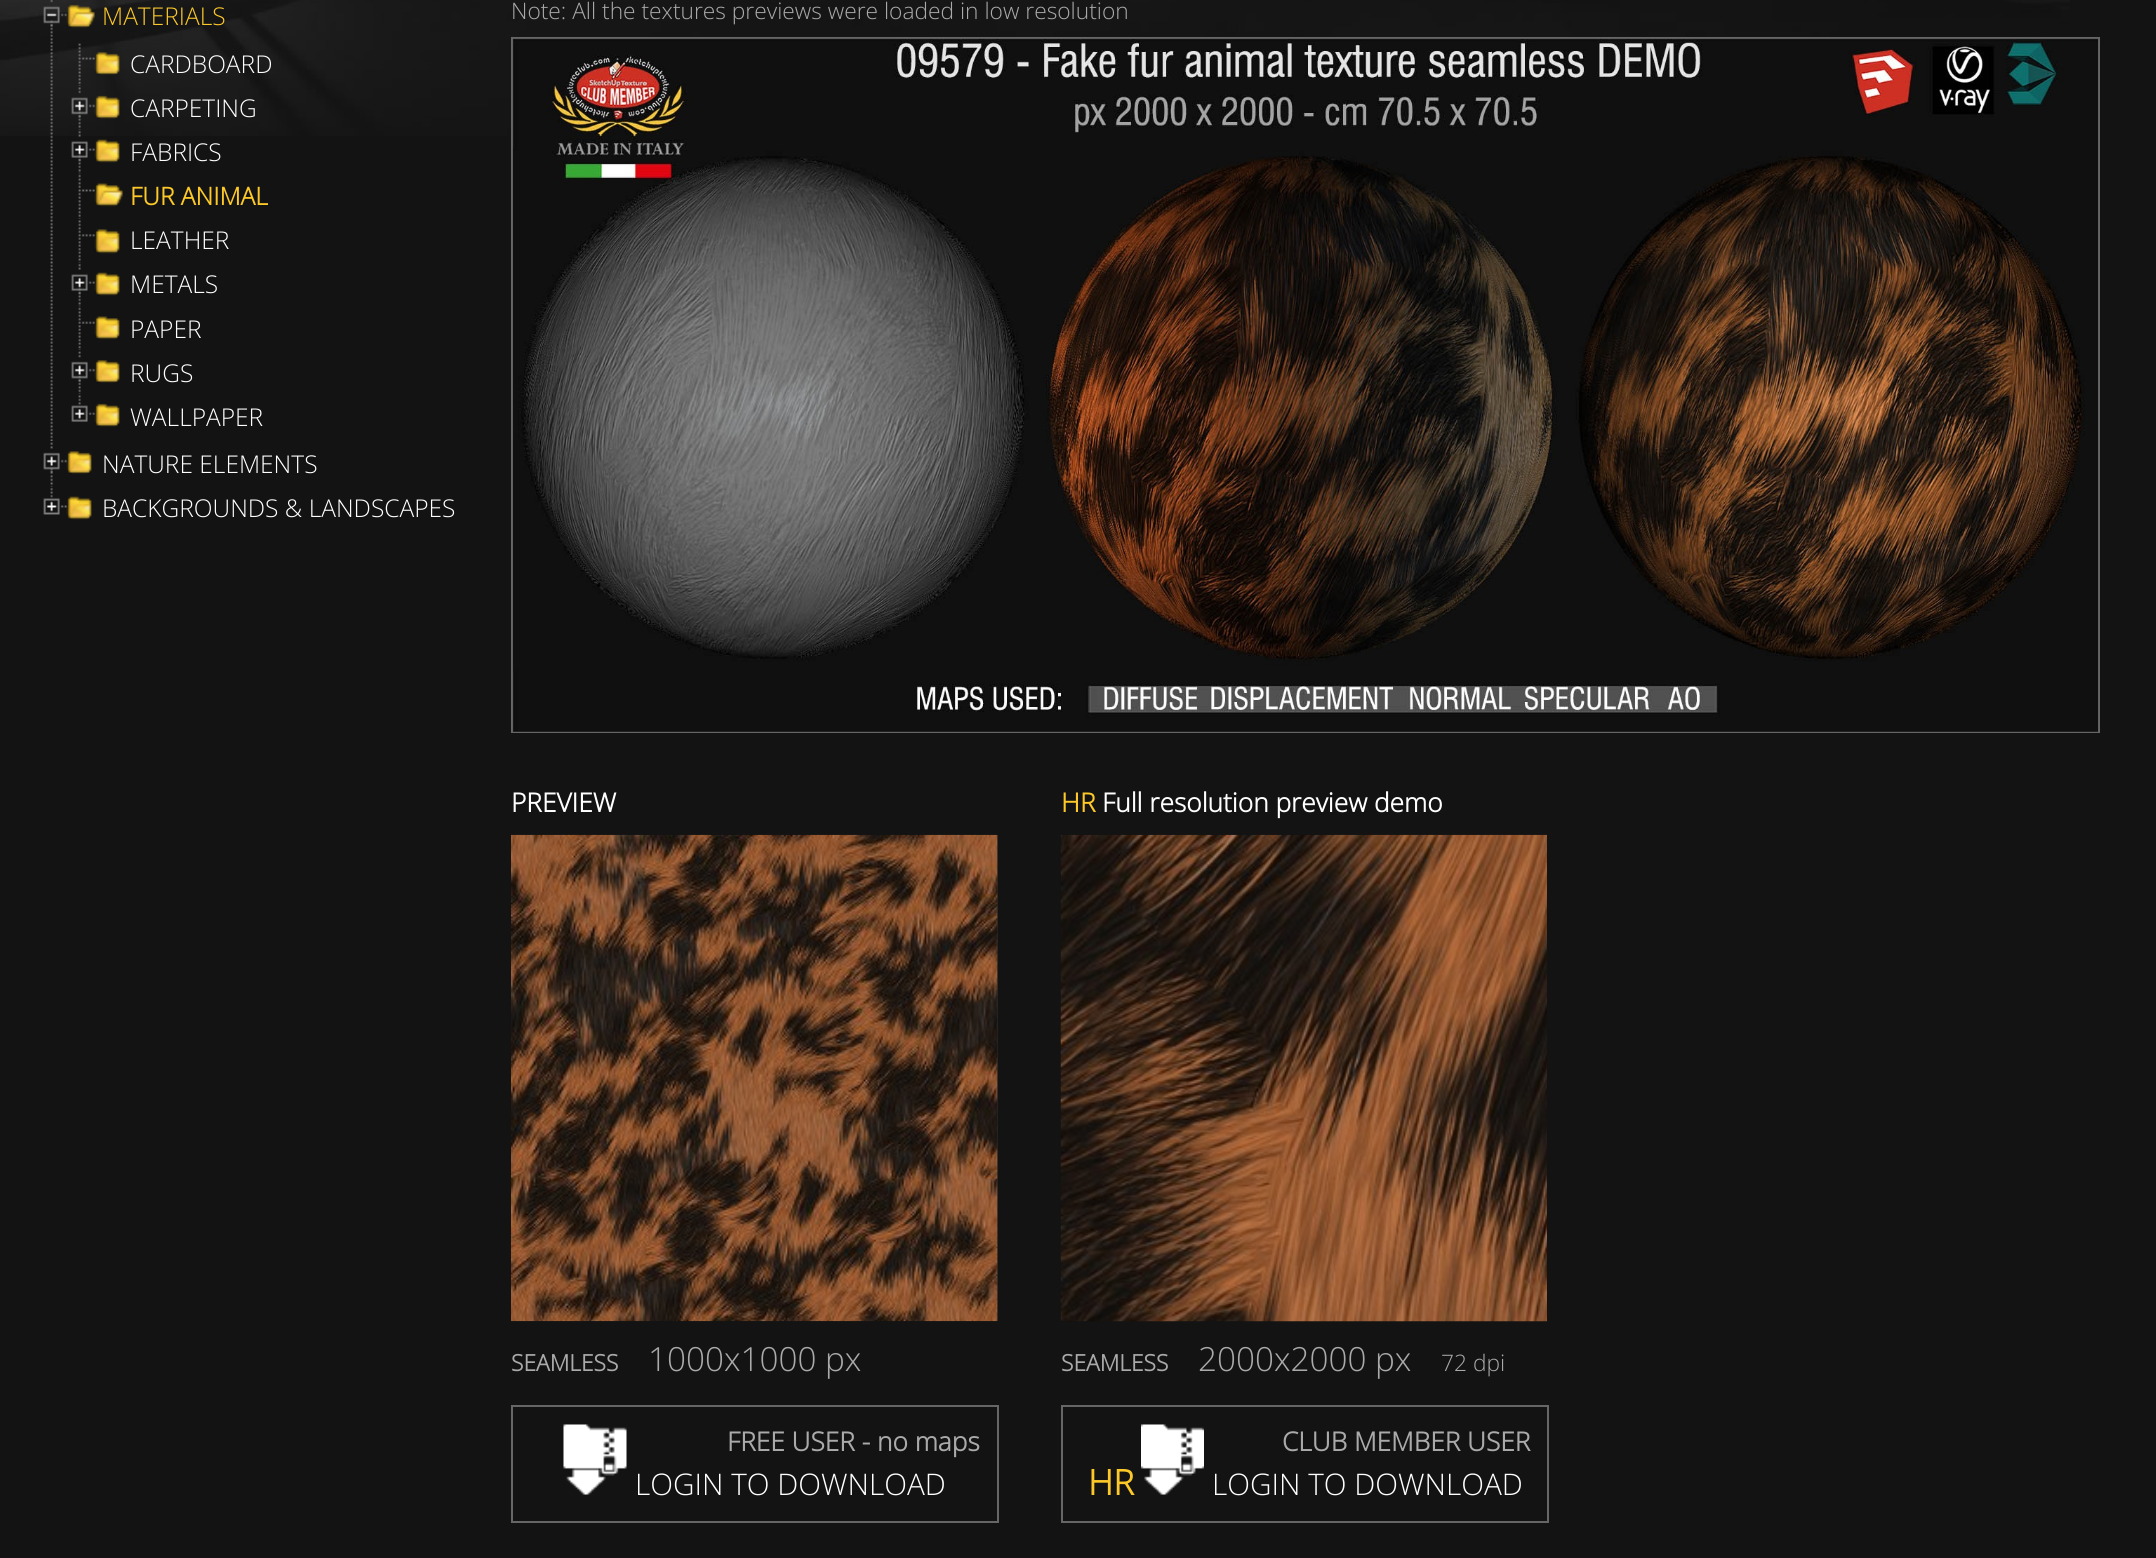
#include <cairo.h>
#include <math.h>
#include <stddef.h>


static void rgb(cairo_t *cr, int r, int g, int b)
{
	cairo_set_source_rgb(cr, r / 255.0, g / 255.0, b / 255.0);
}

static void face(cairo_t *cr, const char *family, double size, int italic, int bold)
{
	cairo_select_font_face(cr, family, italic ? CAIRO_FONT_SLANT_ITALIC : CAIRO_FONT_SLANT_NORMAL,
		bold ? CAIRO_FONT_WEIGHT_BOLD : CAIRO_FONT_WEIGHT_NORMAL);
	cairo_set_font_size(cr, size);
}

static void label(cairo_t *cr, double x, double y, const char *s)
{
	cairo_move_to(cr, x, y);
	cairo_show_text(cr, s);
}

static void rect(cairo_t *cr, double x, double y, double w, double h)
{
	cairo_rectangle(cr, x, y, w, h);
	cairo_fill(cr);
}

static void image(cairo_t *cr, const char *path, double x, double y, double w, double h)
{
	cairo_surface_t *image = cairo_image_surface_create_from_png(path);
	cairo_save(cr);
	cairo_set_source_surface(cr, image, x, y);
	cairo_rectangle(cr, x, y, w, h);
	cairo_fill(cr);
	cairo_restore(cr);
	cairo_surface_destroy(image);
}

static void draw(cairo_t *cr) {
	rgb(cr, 19, 19, 19);
	cairo_paint(cr);
	image(cr, "image0.png", 0, 0, 2070, 136);
	image(cr, "image1.png", 50, 0, 3, 441);
	image(cr, "image3.png", 66, 4, 29, 24);
	image(cr, "image2.png", 43, 6, 24, 21);
	face(cr, "Open Sans Light", 24.5, 0, 0);
	rgb(cr, 253, 201, 41);
	label(cr, 102, 25, "MATERIALS");
	image(cr, "image4.png", 78, 43, 17, 43);
	image(cr, "image5.png", 94, 52, 26, 23);
	rgb(cr, 255, 255, 255);
	label(cr, 130, 73, "CARDBOARD");
	image(cr, "image6.png", 78, 87, 3, 43);
	image(cr, "image8.png", 94, 95, 26, 24);
	image(cr, "image7.png", 71, 97, 24, 21);
	label(cr, 130, 117, "CARPETING");
	image(cr, "image9.png", 78, 130, 3, 44);
	image(cr, "image11.png", 94, 139, 26, 24);
	image(cr, "image10.png", 71, 141, 24, 21);
	label(cr, 130, 161, "FABRICS");
	image(cr, "image12.png", 78, 174, 17, 45);
	image(cr, "image13.png", 94, 183, 29, 24);
	face(cr, "Open Sans", 24.5, 0, 1);
	rgb(cr, 253, 201, 41);
	label(cr, 130, 205, "FUR ANIMAL");
	image(cr, "image14.png", 78, 220, 17, 43);
	image(cr, "image15.png", 94, 229, 26, 25);
	face(cr, "Open Sans Light", 24.5, 0, 0);
	rgb(cr, 255, 255, 255);
	label(cr, 130, 249, "LEATHER");
	image(cr, "image16.png", 78, 263, 3, 44);
	image(cr, "image11.png", 94, 272, 26, 24);
	image(cr, "image10.png", 71, 274, 24, 21);
	label(cr, 130, 293, "METALS");
	image(cr, "image17.png", 78, 307, 17, 43);
	image(cr, "image18.png", 94, 316, 26, 24);
	label(cr, 130, 338, "PAPER");
	image(cr, "image19.png", 78, 351, 3, 43);
	image(cr, "image21.png", 94, 360, 26, 23);
	image(cr, "image20.png", 71, 361, 24, 21);
	label(cr, 130, 382, "RUGS");
	image(cr, "image22.png", 71, 395, 24, 27);
	image(cr, "image23.png", 94, 403, 26, 24);
	label(cr, 130, 426, "WALLPAPER");
	image(cr, "image24.png", 50, 442, 3, 45);
	image(cr, "image26.png", 66, 451, 26, 23);
	image(cr, "image25.png", 43, 452, 24, 21);
	label(cr, 102, 473, "NATURE ELEMENTS");
	image(cr, "image27.png", 43, 487, 24, 28);
	image(cr, "image28.png", 66, 496, 26, 24);
	label(cr, 102, 517, "BACKGROUNDS & LANDSCAPES");
	face(cr, "Open Sans Light", 22.75, 0, 0);
	rgb(cr, 170, 170, 170);
	label(cr, 511, 19, "Note: All the textures previews were loaded in low resolution");
	cairo_rectangle(cr, 512, 38, 1587, 694);
	rgb(cr, 102, 102, 102);
	cairo_stroke(cr);
	rgb(cr, 39, 39, 39);
	rect(cr, 513, 731, 1585, 1);
	image(cr, "image29.png", 512, 38, 1587, 694);
	face(cr, "Open Sans", 26.25, 0, 1);
	rgb(cr, 255, 255, 255);
	label(cr, 511, 812, "PREVIEW");
	rgb(cr, 39, 39, 39);
	rect(cr, 997, 835, 1, 486);
	image(cr, "image30.png", 511, 834, 487, 488);
	face(cr, "Open Sans", 22.75, 0, 1);
	rgb(cr, 170, 170, 170);
	label(cr, 511, 1371, "SEAMLESS");
	face(cr, "Open Sans Light", 33.25, 0, 0);
	label(cr, 648, 1371, "1000x1000 px");
	cairo_rectangle(cr, 512, 1406, 486, 116);
	rgb(cr, 102, 102, 102);
	cairo_stroke(cr);
	image(cr, "image31.png", 563, 1424, 64, 71);
	face(cr, "Open Sans", 26.25, 0, 1);
	rgb(cr, 170, 170, 170);
	label(cr, 727, 1451, "FREE USER - no maps");
	face(cr, "Open Sans Light", 29.75, 0, 0);
	rgb(cr, 255, 255, 255);
	label(cr, 635, 1495, "LOGIN TO DOWNLOAD");
	face(cr, "Open Sans", 26.25, 0, 1);
	rgb(cr, 253, 201, 41);
	label(cr, 1061, 812, "HR");
	rgb(cr, 255, 255, 255);
	label(cr, 1102, 812, "Full resolution preview demo");
	image(cr, "image32.png", 1060, 834, 487, 488);
	face(cr, "Open Sans", 22.75, 0, 1);
	rgb(cr, 170, 170, 170);
	label(cr, 1061, 1371, "SEAMLESS");
	face(cr, "Open Sans Light", 33.25, 0, 0);
	label(cr, 1198, 1371, "2000x2000 px");
	face(cr, "Open Sans Light", 22.75, 0, 0);
	label(cr, 1441, 1371, "72 dpi");
	cairo_rectangle(cr, 1062, 1406, 486, 116);
	rgb(cr, 102, 102, 102);
	cairo_stroke(cr);
	image(cr, "image33.png", 1141, 1424, 63, 71);
	face(cr, "Open Sans", 26.25, 0, 1);
	rgb(cr, 170, 170, 170);
	label(cr, 1282, 1451, "CLUB MEMBER USER");
	face(cr, "Open Sans", 35, 0, 1);
	rgb(cr, 253, 201, 41);
	label(cr, 1088, 1495, "HR");
	face(cr, "Open Sans Light", 29.75, 0, 0);
	rgb(cr, 255, 255, 255);
	label(cr, 1212, 1495, "LOGIN TO DOWNLOAD");
}

int main(void) {
	cairo_surface_t *surface = cairo_image_surface_create(CAIRO_FORMAT_RGB24, 2156, 1558);
	cairo_t *cr = cairo_create(surface);
	cairo_font_options_t *options = cairo_font_options_create();
	cairo_font_options_set_hint_metrics(options, CAIRO_HINT_METRICS_OFF);
	cairo_font_options_set_hint_style(options, CAIRO_HINT_STYLE_NONE);
	cairo_set_font_options(cr, options);
	cairo_set_miter_limit(cr, 4);
	draw(cr);
	cairo_surface_write_to_png(surface, "render.png");
	cairo_font_options_destroy(options);
	cairo_destroy(cr);
	cairo_surface_destroy(surface);
	return 0;
}
